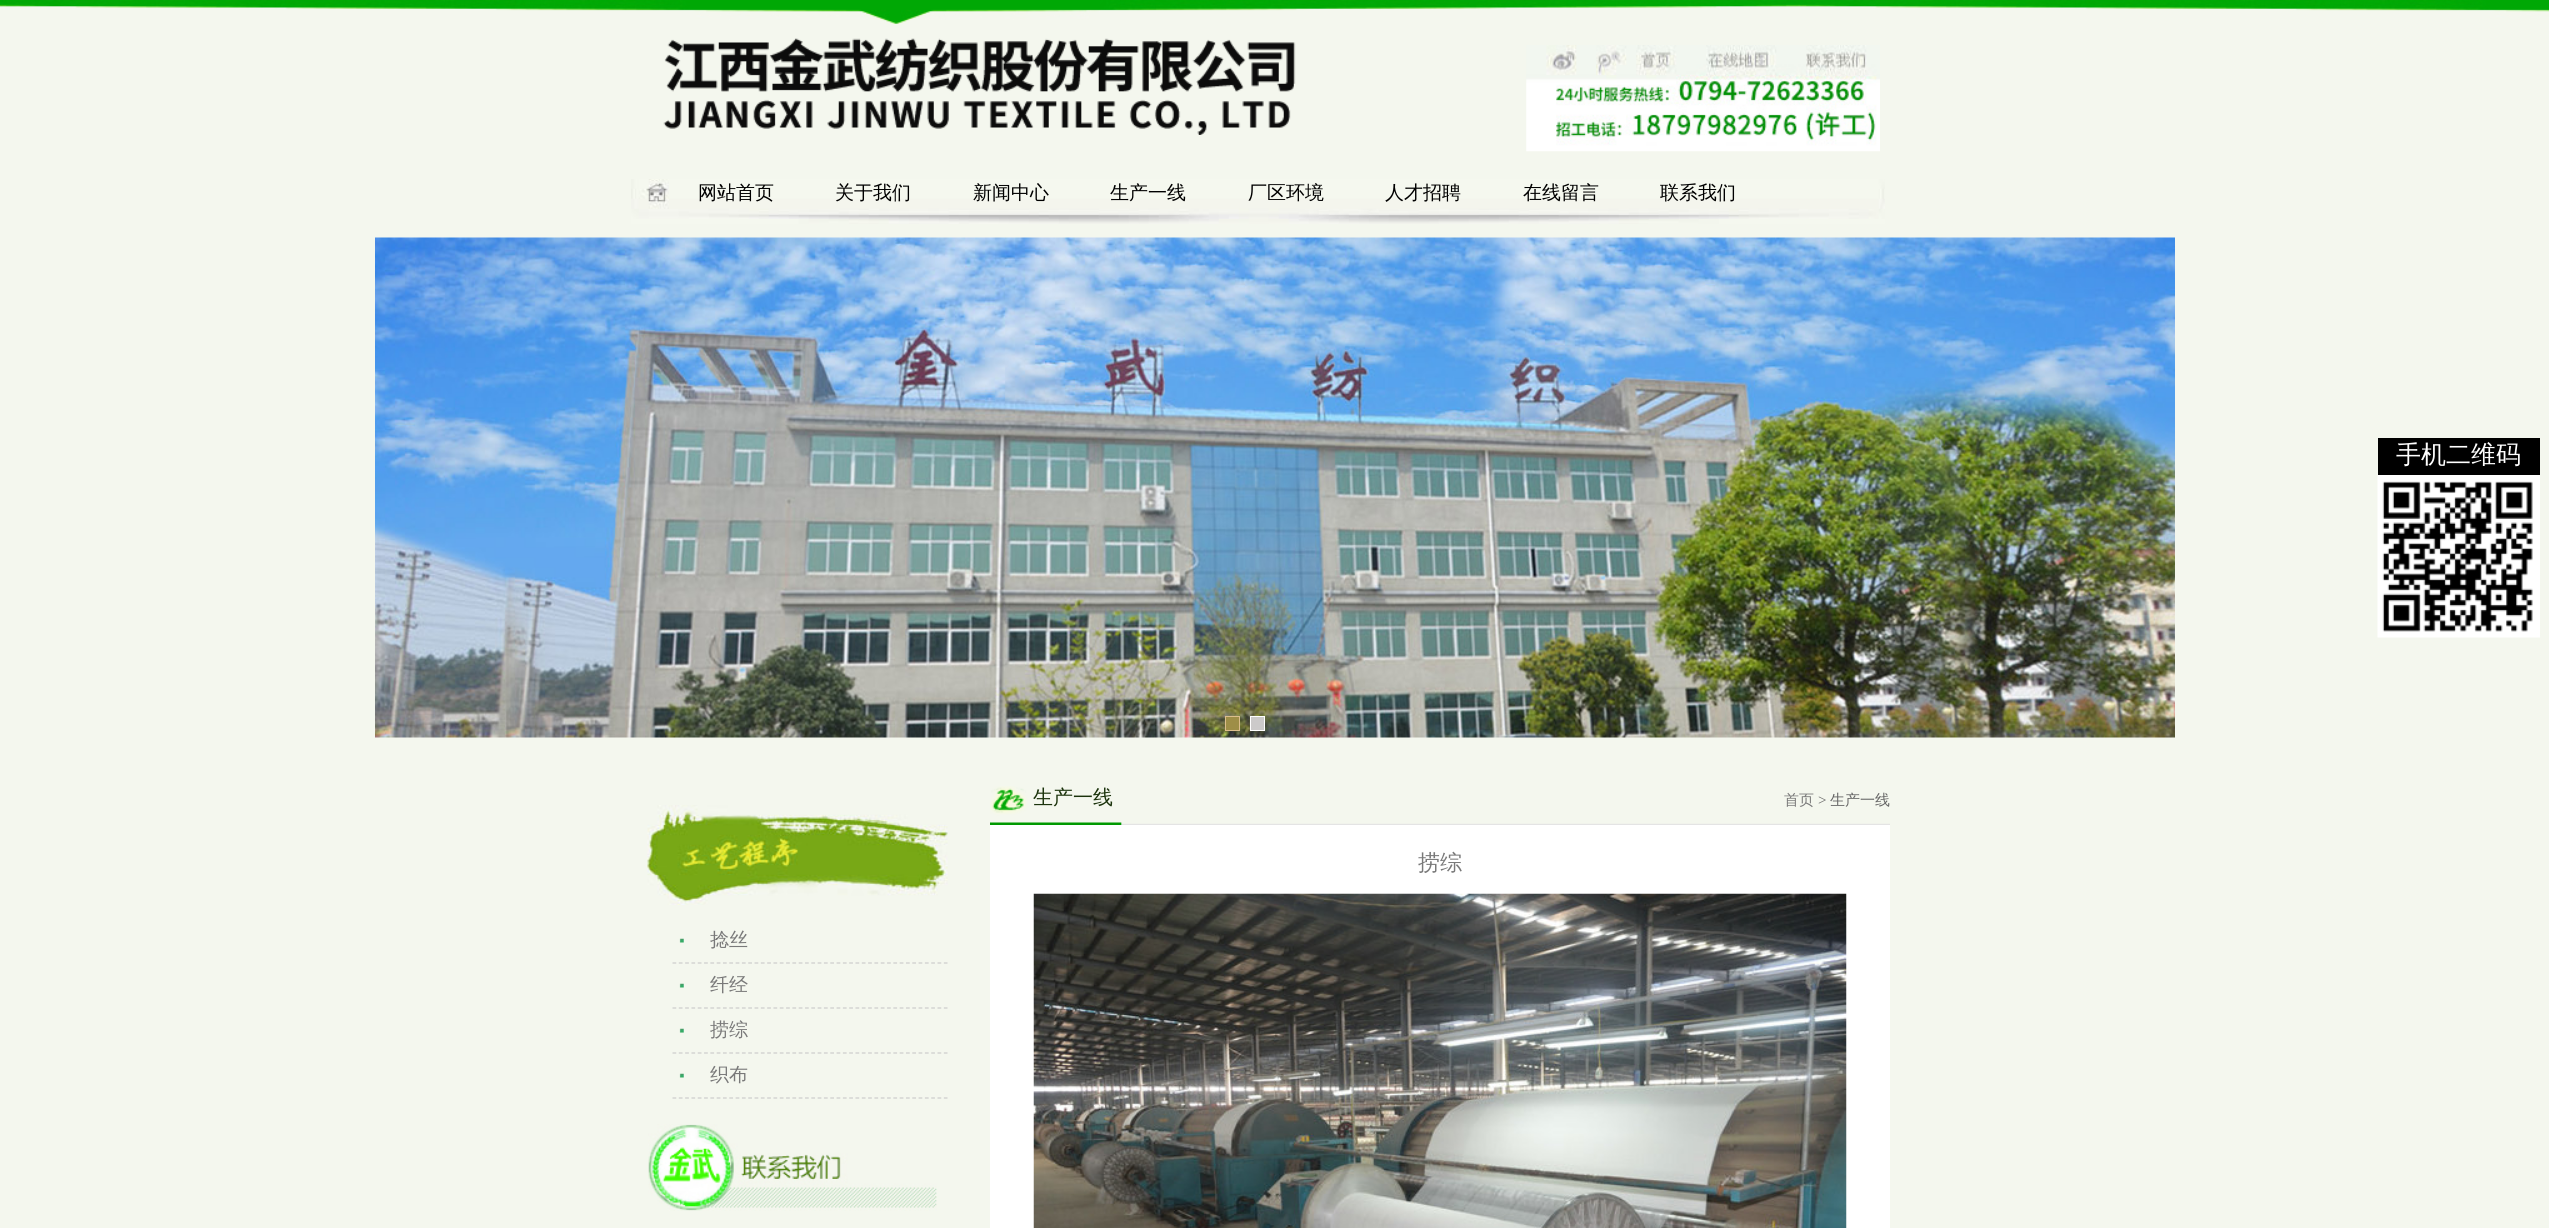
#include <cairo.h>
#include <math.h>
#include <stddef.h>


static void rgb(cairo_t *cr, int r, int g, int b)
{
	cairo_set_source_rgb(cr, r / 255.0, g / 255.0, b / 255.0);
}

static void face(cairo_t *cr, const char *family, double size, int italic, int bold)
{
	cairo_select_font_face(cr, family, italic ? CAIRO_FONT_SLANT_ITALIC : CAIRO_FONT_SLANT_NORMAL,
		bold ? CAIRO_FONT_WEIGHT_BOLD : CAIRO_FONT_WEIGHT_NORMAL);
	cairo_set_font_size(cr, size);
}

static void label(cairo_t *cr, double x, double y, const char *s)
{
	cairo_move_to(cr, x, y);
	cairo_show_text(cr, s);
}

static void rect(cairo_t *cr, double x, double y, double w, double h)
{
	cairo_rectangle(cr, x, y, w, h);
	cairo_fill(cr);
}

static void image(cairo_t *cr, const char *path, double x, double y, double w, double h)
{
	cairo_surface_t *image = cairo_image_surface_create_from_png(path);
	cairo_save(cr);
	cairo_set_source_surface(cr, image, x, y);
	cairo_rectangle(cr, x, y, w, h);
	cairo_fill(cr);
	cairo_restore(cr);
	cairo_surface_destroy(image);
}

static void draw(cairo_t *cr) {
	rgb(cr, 244, 247, 238);
	cairo_paint(cr);
	image(cr, "image0.png", 0, 0, 2549, 24);
	image(cr, "image1.png", 663, 38, 633, 97);
	image(cr, "image2.png", 1526, 45, 354, 107);
	image(cr, "image3.png", 631, 179, 1254, 45);
	face(cr, "WenQuanYi Zen Hei Medium", 19, 0, 0);
	rgb(cr, 0, 0, 0);
	label(cr, 698, 199, "网站首页");
	label(cr, 835, 199, "关于我们");
	label(cr, 973, 199, "新闻中心");
	label(cr, 1110, 199, "生产一线");
	label(cr, 1248, 199, "厂区环境");
	label(cr, 1385, 199, "人才招聘");
	label(cr, 1523, 199, "在线留言");
	label(cr, 1660, 199, "联系我们");
	image(cr, "image4.png", 375, 237, 1800, 501);
	rgb(cr, 158, 142, 71);
	cairo_rectangle(cr, 1225.5, 716.5, 14, 14);
	cairo_fill_preserve(cr);
	rgb(cr, 220, 190, 140);
	cairo_set_line_width(cr, 1);
	cairo_stroke(cr);
	rgb(cr, 204, 202, 202);
	cairo_rectangle(cr, 1250.5, 716.5, 14, 14);
	cairo_fill_preserve(cr);
	rgb(cr, 255, 255, 255);
	cairo_stroke(cr);
	rgb(cr, 0, 0, 0);
	rect(cr, 2378, 438, 162, 37);
	face(cr, "WenQuanYi Zen Hei Medium", 25, 0, 0);
	rgb(cr, 255, 255, 255);
	label(cr, 2396, 463, "手机二维码");
	image(cr, "image5.png", 2377, 475, 163, 163);
	image(cr, "image6.png", 990, 786, 900, 39);
	face(cr, "WenQuanYi Zen Hei Medium", 20, 0, 0);
	rgb(cr, 27, 51, 12);
	label(cr, 1033, 804, "生产一线");
	face(cr, "WenQuanYi Zen Hei Medium", 15, 0, 0);
	rgb(cr, 121, 121, 121);
	label(cr, 1784, 805, "首页");
	face(cr, "Liberation Serif", 15, 0, 0);
	rgb(cr, 102, 102, 102);
	label(cr, 1818, 805, ">");
	face(cr, "WenQuanYi Zen Hei Medium", 15, 0, 0);
	label(cr, 1830, 805, "生产一线");
	rgb(cr, 255, 255, 255);
	rect(cr, 990, 825, 900, 403);
	face(cr, "WenQuanYi Zen Hei Medium", 22, 0, 0);
	rgb(cr, 121, 121, 121);
	label(cr, 1418, 870, "捞综");
	image(cr, "image7.png", 1033, 893, 814, 335);
	image(cr, "image8.png", 647, 805, 301, 100);
	cairo_new_path(cr);
	cairo_move_to(cr, 672.5, 963);
	cairo_line_to(cr, 947.5, 963);
	rgb(cr, 204, 204, 204);
	cairo_set_line_width(cr, 1.2);
	cairo_set_dash(cr, (double[]){3.75, 2.56}, 2, 0);
	cairo_stroke(cr);
	image(cr, "image9.png", 679, 938, 5, 5);
	face(cr, "WenQuanYi Zen Hei Medium", 19, 0, 0);
	rgb(cr, 121, 121, 121);
	label(cr, 710, 946, "捻丝");
	cairo_new_path(cr);
	cairo_move_to(cr, 672.5, 1008);
	cairo_line_to(cr, 947.5, 1008);
	rgb(cr, 204, 204, 204);
	cairo_stroke(cr);
	image(cr, "image9.png", 679, 983, 5, 5);
	rgb(cr, 121, 121, 121);
	label(cr, 710, 991, "纤经");
	cairo_new_path(cr);
	cairo_move_to(cr, 672.5, 1053);
	cairo_line_to(cr, 947.5, 1053);
	rgb(cr, 204, 204, 204);
	cairo_stroke(cr);
	image(cr, "image10.png", 679, 1028, 5, 5);
	rgb(cr, 121, 121, 121);
	label(cr, 710, 1036, "捞综");
	cairo_new_path(cr);
	cairo_move_to(cr, 672.5, 1098);
	cairo_line_to(cr, 947.5, 1098);
	rgb(cr, 204, 204, 204);
	cairo_stroke(cr);
	image(cr, "image9.png", 679, 1073, 5, 5);
	rgb(cr, 121, 121, 121);
	label(cr, 710, 1081, "织布");
	image(cr, "image11.png", 648, 1124, 289, 87);
}

int main(void) {
	cairo_surface_t *surface = cairo_image_surface_create(CAIRO_FORMAT_RGB24, 2549, 1228);
	cairo_t *cr = cairo_create(surface);
	cairo_font_options_t *options = cairo_font_options_create();
	cairo_font_options_set_hint_metrics(options, CAIRO_HINT_METRICS_OFF);
	cairo_font_options_set_hint_style(options, CAIRO_HINT_STYLE_NONE);
	cairo_set_font_options(cr, options);
	cairo_set_miter_limit(cr, 4);
	draw(cr);
	cairo_surface_write_to_png(surface, "render.png");
	cairo_font_options_destroy(options);
	cairo_destroy(cr);
	cairo_surface_destroy(surface);
	return 0;
}
